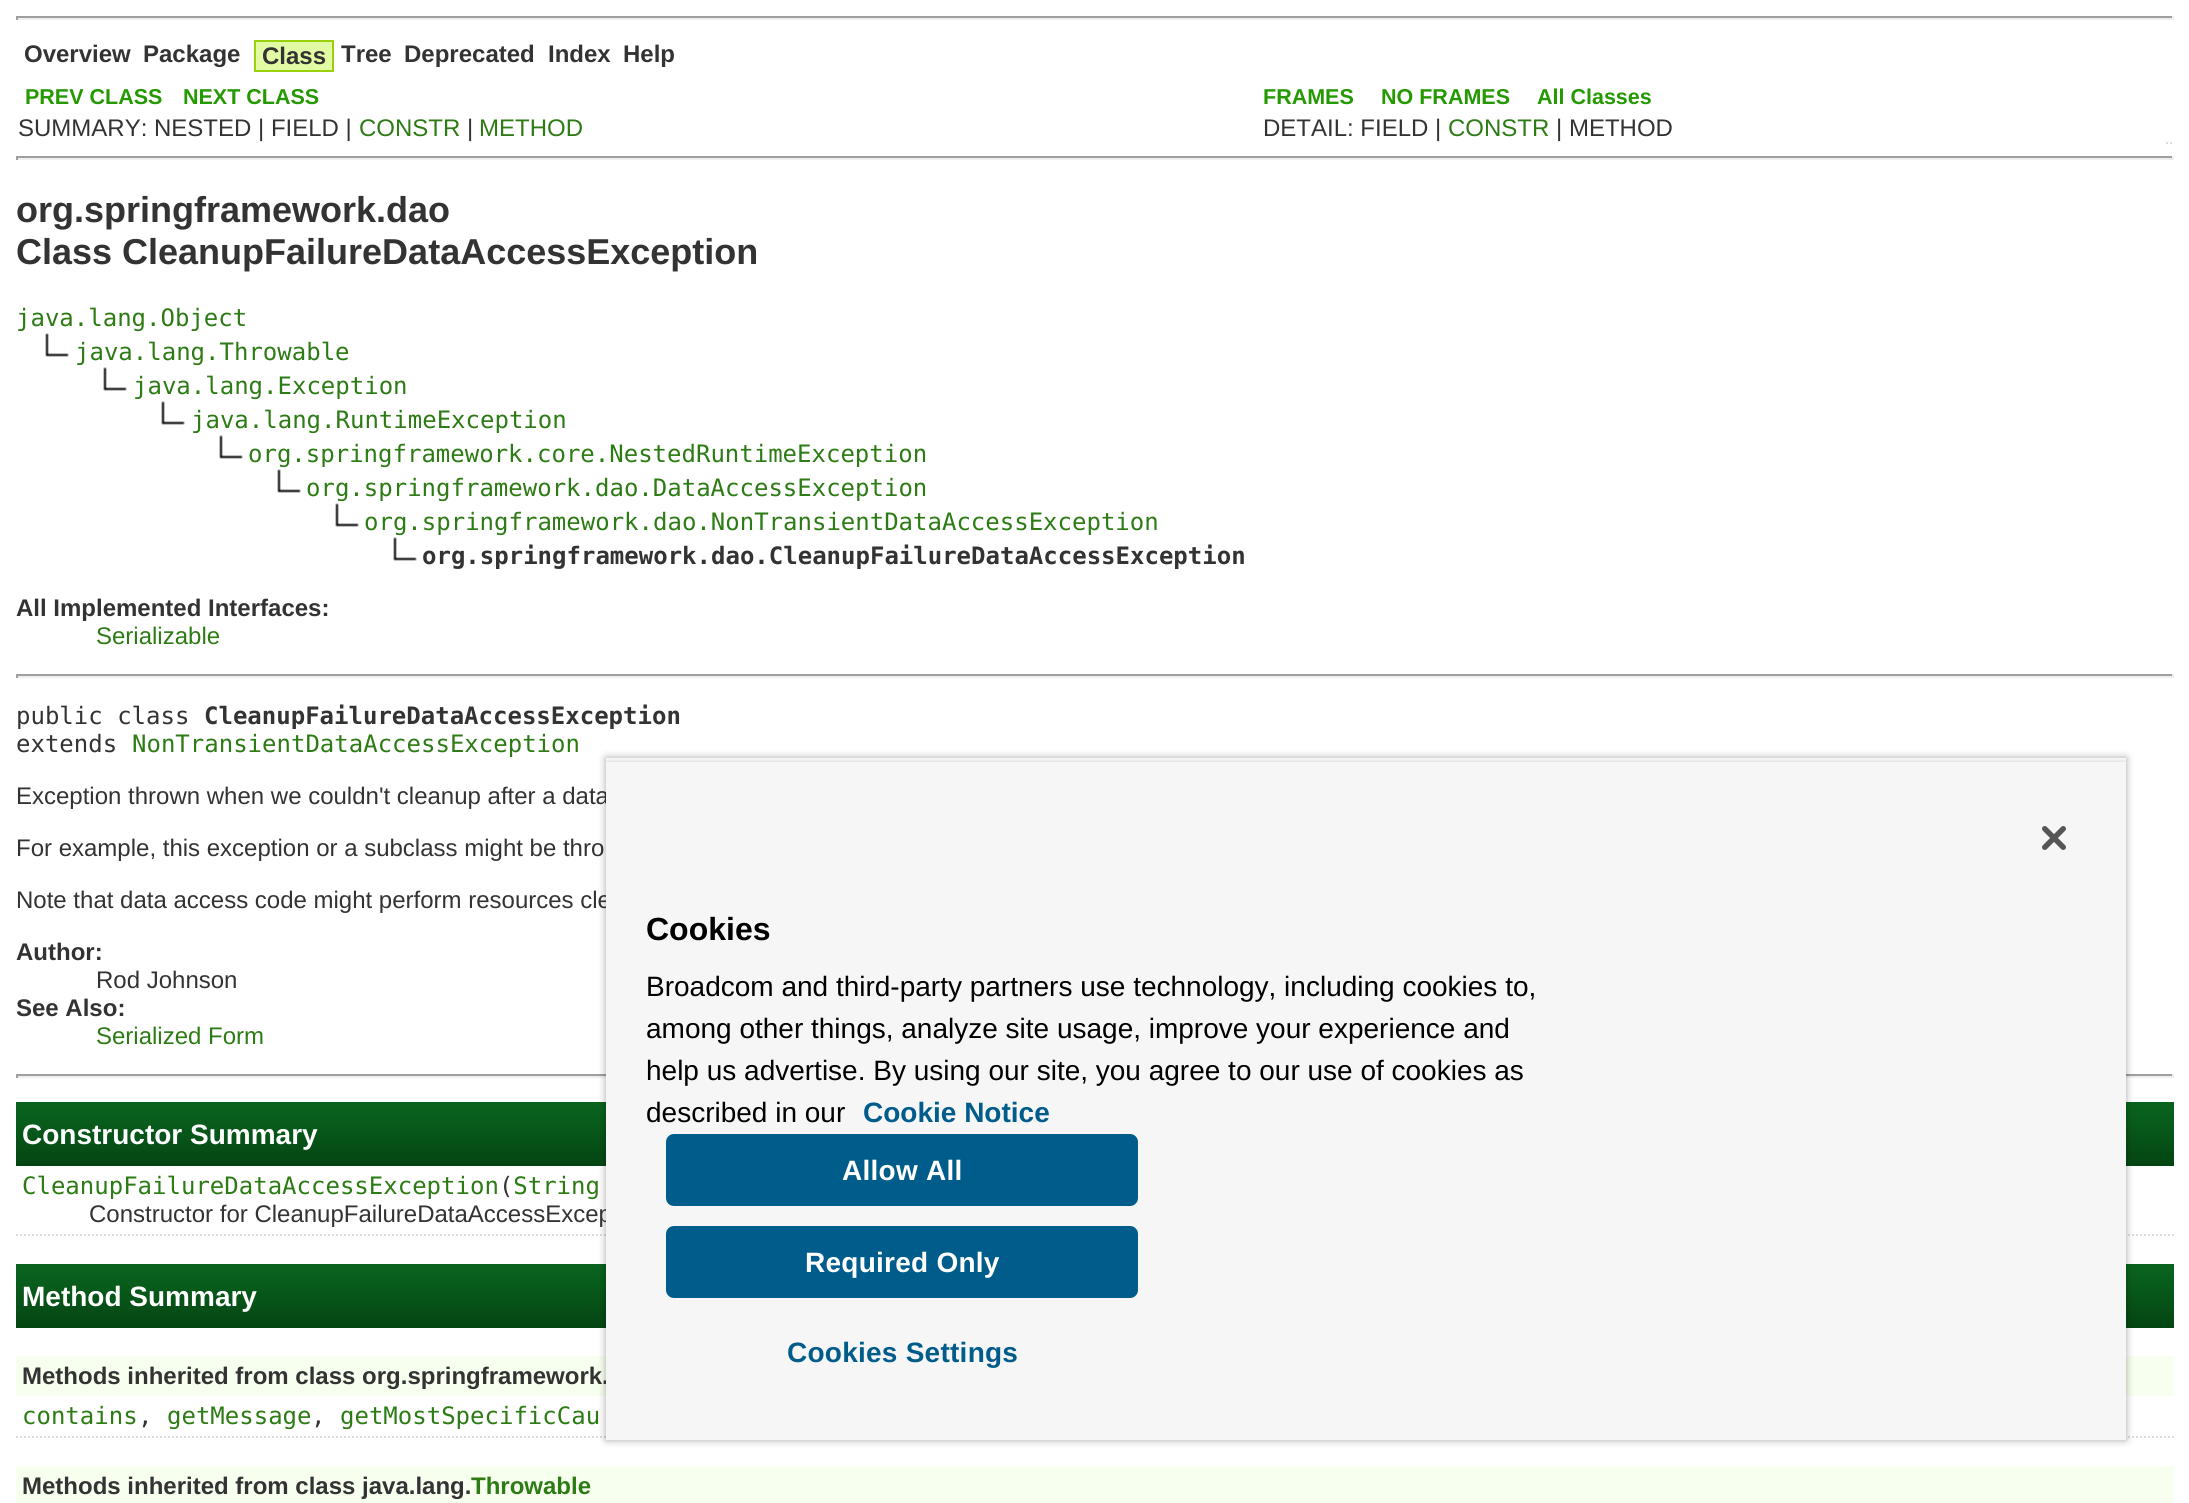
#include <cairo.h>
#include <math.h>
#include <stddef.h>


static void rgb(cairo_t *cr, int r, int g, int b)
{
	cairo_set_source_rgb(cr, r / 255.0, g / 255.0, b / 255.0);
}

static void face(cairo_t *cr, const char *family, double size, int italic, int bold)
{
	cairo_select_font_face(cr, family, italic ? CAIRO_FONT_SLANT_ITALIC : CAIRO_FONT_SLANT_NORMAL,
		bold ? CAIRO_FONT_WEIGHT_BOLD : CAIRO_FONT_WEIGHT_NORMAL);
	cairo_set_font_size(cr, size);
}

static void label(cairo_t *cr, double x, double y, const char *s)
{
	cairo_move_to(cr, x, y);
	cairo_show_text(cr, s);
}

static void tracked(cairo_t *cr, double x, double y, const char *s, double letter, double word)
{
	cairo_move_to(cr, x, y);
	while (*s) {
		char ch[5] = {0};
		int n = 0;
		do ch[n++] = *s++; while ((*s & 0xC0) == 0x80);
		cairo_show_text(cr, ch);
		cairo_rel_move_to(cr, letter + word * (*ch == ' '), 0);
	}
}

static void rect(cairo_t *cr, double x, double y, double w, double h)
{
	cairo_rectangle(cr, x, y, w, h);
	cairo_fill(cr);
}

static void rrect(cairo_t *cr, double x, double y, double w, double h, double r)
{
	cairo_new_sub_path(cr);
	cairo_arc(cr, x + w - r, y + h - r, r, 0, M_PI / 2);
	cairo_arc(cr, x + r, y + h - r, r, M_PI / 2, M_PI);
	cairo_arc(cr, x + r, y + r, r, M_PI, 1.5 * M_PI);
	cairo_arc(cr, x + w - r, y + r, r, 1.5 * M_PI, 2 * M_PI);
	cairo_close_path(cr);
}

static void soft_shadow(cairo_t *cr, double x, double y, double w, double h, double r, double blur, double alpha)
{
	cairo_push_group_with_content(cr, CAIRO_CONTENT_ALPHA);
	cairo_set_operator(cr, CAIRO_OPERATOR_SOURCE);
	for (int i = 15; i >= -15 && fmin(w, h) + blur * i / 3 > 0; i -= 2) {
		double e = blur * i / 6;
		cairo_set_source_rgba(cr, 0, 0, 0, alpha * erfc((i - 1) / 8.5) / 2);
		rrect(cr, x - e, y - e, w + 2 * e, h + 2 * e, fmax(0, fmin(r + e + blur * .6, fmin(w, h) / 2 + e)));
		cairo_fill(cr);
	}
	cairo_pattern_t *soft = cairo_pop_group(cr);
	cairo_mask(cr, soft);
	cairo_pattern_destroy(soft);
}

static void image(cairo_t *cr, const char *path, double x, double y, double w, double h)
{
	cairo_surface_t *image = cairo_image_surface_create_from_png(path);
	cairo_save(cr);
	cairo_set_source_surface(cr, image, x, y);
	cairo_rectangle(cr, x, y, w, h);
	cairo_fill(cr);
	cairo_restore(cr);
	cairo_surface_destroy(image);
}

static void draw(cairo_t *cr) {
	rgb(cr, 255, 255, 255);
	cairo_paint(cr);
	rgb(cr, 159, 159, 159);
	rect(cr, 16, 16, 2158, 2);
	rgb(cr, 238, 238, 238);
	rect(cr, 2172, 16, 2, 4);
	rect(cr, 16, 18, 2158, 2);
	rgb(cr, 159, 159, 159);
	rect(cr, 16, 16, 2, 4);
	face(cr, "Liberation Sans", 24, 0, 1);
	rgb(cr, 51, 51, 51);
	label(cr, 24, 62, "Overview");
	label(cr, 143, 62, "Package");
	rgb(cr, 227, 250, 165);
	cairo_rectangle(cr, 255, 41, 78, 30);
	cairo_fill_preserve(cr);
	rgb(cr, 154, 208, 12);
	cairo_stroke(cr);
	rgb(cr, 51, 51, 51);
	label(cr, 262, 64, "Class");
	label(cr, 341, 62, "Tree");
	label(cr, 404, 62, "Deprecated");
	label(cr, 548, 62, "Index");
	label(cr, 623, 62, "Help");
	cairo_new_path(cr);
	cairo_move_to(cr, 2166, 143);
	cairo_line_to(cr, 2168, 143);
	cairo_move_to(cr, 2170, 143);
	cairo_line_to(cr, 2172, 143);
	rgb(cr, 221, 221, 221);
	cairo_stroke(cr);
	face(cr, "Liberation Sans", 21.5, 0, 1);
	rgb(cr, 36, 153, 1);
	label(cr, 25, 104, "PREV CLASS");
	label(cr, 183, 104, "NEXT CLASS");
	label(cr, 1263, 104, "FRAMES");
	label(cr, 1381, 104, "NO FRAMES");
	label(cr, 1537, 104, "All Classes");
	face(cr, "Liberation Sans", 24, 0, 0);
	rgb(cr, 51, 51, 51);
	label(cr, 18, 136, "SUMMARY: NESTED | FIELD |");
	rgb(cr, 44, 123, 20);
	label(cr, 359, 136, "CONSTR");
	rgb(cr, 51, 51, 51);
	label(cr, 467, 136, "|");
	rgb(cr, 44, 123, 20);
	label(cr, 479, 136, "METHOD");
	rgb(cr, 51, 51, 51);
	label(cr, 1263, 136, "DETAIL: FIELD |");
	rgb(cr, 44, 123, 20);
	label(cr, 1448, 136, "CONSTR");
	rgb(cr, 51, 51, 51);
	label(cr, 1556, 136, "| METHOD");
	rgb(cr, 159, 159, 159);
	rect(cr, 16, 156, 2158, 2);
	rgb(cr, 238, 238, 238);
	rect(cr, 2172, 156, 2, 4);
	rect(cr, 16, 158, 2158, 2);
	rgb(cr, 159, 159, 159);
	rect(cr, 16, 156, 2, 4);
	face(cr, "Liberation Sans", 36, 0, 1);
	rgb(cr, 51, 51, 51);
	label(cr, 16, 222, "org.springframework.dao");
	label(cr, 16, 264, "Class CleanupFailureDataAccessException");
	face(cr, "DejaVu Sans Mono", 24, 0, 0);
	rgb(cr, 44, 123, 20);
	label(cr, 16, 326, "java.lang.Object");
	image(cr, "image0.png", 45, 333, 24, 24);
	label(cr, 75, 360, "java.lang.Throwable");
	image(cr, "image0.png", 103, 367, 24, 24);
	label(cr, 133, 394, "java.lang.Exception");
	image(cr, "image0.png", 161, 401, 24, 24);
	label(cr, 191, 428, "java.lang.RuntimeException");
	image(cr, "image0.png", 219, 435, 24, 24);
	label(cr, 248, 462, "org.springframework.core.NestedRuntimeException");
	image(cr, "image0.png", 277, 469, 24, 24);
	label(cr, 306, 496, "org.springframework.dao.DataAccessException");
	image(cr, "image0.png", 335, 503, 24, 24);
	label(cr, 364, 530, "org.springframework.dao.NonTransientDataAccessException");
	image(cr, "image0.png", 393, 537, 24, 24);
	face(cr, "DejaVu Sans Mono", 24, 0, 1);
	rgb(cr, 51, 51, 51);
	label(cr, 422, 564, "org.springframework.dao.CleanupFailureDataAccessException");
	face(cr, "Liberation Sans", 24, 0, 1);
	label(cr, 16, 616, "All Implemented Interfaces:");
	face(cr, "Liberation Sans", 24, 0, 0);
	rgb(cr, 44, 123, 20);
	label(cr, 96, 644, "Serializable");
	rgb(cr, 159, 159, 159);
	rect(cr, 16, 674, 2158, 2);
	rgb(cr, 238, 238, 238);
	rect(cr, 2172, 674, 2, 4);
	rect(cr, 16, 676, 2158, 2);
	rgb(cr, 159, 159, 159);
	rect(cr, 16, 674, 2, 4);
	face(cr, "DejaVu Sans Mono", 24, 0, 0);
	rgb(cr, 51, 51, 51);
	label(cr, 16, 724, "public class");
	face(cr, "DejaVu Sans Mono", 24, 0, 1);
	label(cr, 204, 724, "CleanupFailureDataAccessException");
	face(cr, "DejaVu Sans Mono", 24, 0, 0);
	label(cr, 16, 752, "extends");
	rgb(cr, 44, 123, 20);
	label(cr, 132, 752, "NonTransientDataAccessException");
	face(cr, "Liberation Sans", 24, 0, 0);
	rgb(cr, 51, 51, 51);
	label(cr, 16, 804, "Exception thrown when we couldn't cleanup after a data");
	label(cr, 16, 856, "For example, this exception or a subclass might be thro");
	label(cr, 16, 908, "Note that data access code might perform resources cle");
	face(cr, "Liberation Sans", 24, 0, 1);
	label(cr, 16, 960, "Author:");
	face(cr, "Liberation Sans", 24, 0, 0);
	label(cr, 96, 988, "Rod Johnson");
	face(cr, "Liberation Sans", 24, 0, 1);
	label(cr, 16, 1016, "See Also:");
	face(cr, "Liberation Sans", 24, 0, 0);
	rgb(cr, 44, 123, 20);
	label(cr, 96, 1044, "Serialized Form");
	rgb(cr, 159, 159, 159);
	rect(cr, 16, 1074, 2158, 2);
	rgb(cr, 238, 238, 238);
	rect(cr, 2172, 1074, 2, 4);
	rect(cr, 16, 1076, 2158, 2);
	image(cr, "image2.png", 16, 1102, 2158, 64);
	cairo_new_path(cr);
	cairo_move_to(cr, 16, 1235);
	cairo_line_to(cr, 2174, 1235);
	rgb(cr, 221, 221, 221);
	cairo_set_dash(cr, (double[]){2, 2}, 2, 0);
	cairo_stroke(cr);
	image(cr, "image2.png", 16, 1264, 2158, 64);
	rgb(cr, 247, 255, 238);
	rect(cr, 16, 1356, 2158, 40);
	cairo_new_path(cr);
	cairo_move_to(cr, 16, 1437);
	cairo_line_to(cr, 2174, 1437);
	rgb(cr, 221, 221, 221);
	cairo_stroke(cr);
	cairo_save(cr);
	cairo_set_fill_rule(cr, CAIRO_FILL_RULE_EVEN_ODD);
	cairo_new_path(cr);
	cairo_move_to(cr, 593, 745);
	cairo_line_to(cr, 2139, 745);
	cairo_line_to(cr, 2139, 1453);
	cairo_line_to(cr, 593, 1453);
	cairo_close_path(cr);
	cairo_move_to(cr, 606, 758);
	cairo_line_to(cr, 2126, 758);
	cairo_line_to(cr, 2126, 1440);
	cairo_line_to(cr, 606, 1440);
	cairo_close_path(cr);
	cairo_clip(cr);
	rgb(cr, 0, 0, 0);
	soft_shadow(cr, 606, 758, 1520, 682, 0, 4, 0.35);
	cairo_restore(cr);
	cairo_save(cr);
	cairo_rectangle(cr, 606, 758, 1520, 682);
	cairo_clip(cr);
	rgb(cr, 0, 0, 0);
	soft_shadow(cr, 606, 762, 1520, 678, 0, 4, 0.2);
	cairo_restore(cr);
	rgb(cr, 51, 51, 51);
	label(cr, 89, 1222, "Constructor for CleanupFailureDataAccessExcep");
	face(cr, "Liberation Sans", 24, 0, 1);
	label(cr, 22, 1384, "Methods inherited from class org.springframework.");
	rgb(cr, 246, 246, 246);
	rect(cr, 606, 762, 1520, 678);
	image(cr, "image1.png", 2042, 826, 24, 24);
	face(cr, "Liberation Sans", 32, 0, 1);
	rgb(cr, 0, 0, 0);
	label(cr, 646, 940, "Cookies");
	face(cr, "Liberation Sans", 28, 0, 0);
	label(cr, 646, 996, "Broadcom and third-party partners use technology, including cookies to,");
	label(cr, 646, 1038, "among other things, analyze site usage, improve your experience and");
	label(cr, 646, 1080, "help us advertise. By using our site, you agree to our use of cookies as");
	label(cr, 646, 1122, "described in our");
	face(cr, "Liberation Sans", 28, 0, 1);
	rgb(cr, 0, 92, 138);
	label(cr, 863, 1122, "Cookie Notice");
	rrect(cr, 667, 1135, 470, 70, 7);
	cairo_fill_preserve(cr);
	cairo_set_dash(cr, NULL, 0, 0);
	cairo_stroke(cr);
	rgb(cr, 255, 255, 255);
	tracked(cr, 842, 1180, "Allow All", 0.25, 0);
	rgb(cr, 0, 92, 138);
	rrect(cr, 667, 1227, 470, 70, 7);
	cairo_fill_preserve(cr);
	cairo_stroke(cr);
	rgb(cr, 255, 255, 255);
	tracked(cr, 805, 1272, "Required Only", 0.25, 0);
	rgb(cr, 0, 92, 138);
	tracked(cr, 787, 1362, "Cookies Settings", 0.25, 0);
	rgb(cr, 159, 159, 159);
	rect(cr, 16, 1074, 2, 4);
	rgb(cr, 255, 255, 255);
	label(cr, 22, 1144, "Constructor Summary");
	face(cr, "DejaVu Sans Mono", 24, 0, 0);
	rgb(cr, 44, 123, 20);
	label(cr, 22, 1194, "CleanupFailureDataAccessException String");
	rgb(cr, 51, 51, 51);
	label(cr, 499, 1194, "(");
	face(cr, "Liberation Sans", 28, 0, 1);
	rgb(cr, 255, 255, 255);
	label(cr, 22, 1306, "Method Summary");
	face(cr, "DejaVu Sans Mono", 24, 0, 0);
	rgb(cr, 44, 123, 20);
	label(cr, 22, 1424, "contains");
	rgb(cr, 51, 51, 51);
	label(cr, 138, 1424, ",");
	rgb(cr, 44, 123, 20);
	label(cr, 167, 1424, "getMessage");
	rgb(cr, 51, 51, 51);
	label(cr, 311, 1424, ",");
	rgb(cr, 44, 123, 20);
	label(cr, 340, 1424, "getMostSpecificCau");
	rgb(cr, 247, 255, 238);
	rect(cr, 16, 1466, 2158, 37);
	face(cr, "Liberation Sans", 24, 0, 1);
	rgb(cr, 51, 51, 51);
	label(cr, 22, 1494, "Methods inherited from class java.lang.");
	rgb(cr, 44, 123, 20);
	label(cr, 471, 1494, "Throwable");
}

int main(void) {
	cairo_surface_t *surface = cairo_image_surface_create(CAIRO_FORMAT_RGB24, 2189, 1503);
	cairo_t *cr = cairo_create(surface);
	cairo_font_options_t *options = cairo_font_options_create();
	cairo_font_options_set_hint_metrics(options, CAIRO_HINT_METRICS_OFF);
	cairo_font_options_set_hint_style(options, CAIRO_HINT_STYLE_NONE);
	cairo_set_font_options(cr, options);
	cairo_set_miter_limit(cr, 4);
	draw(cr);
	cairo_surface_write_to_png(surface, "render.png");
	cairo_font_options_destroy(options);
	cairo_destroy(cr);
	cairo_surface_destroy(surface);
	return 0;
}
